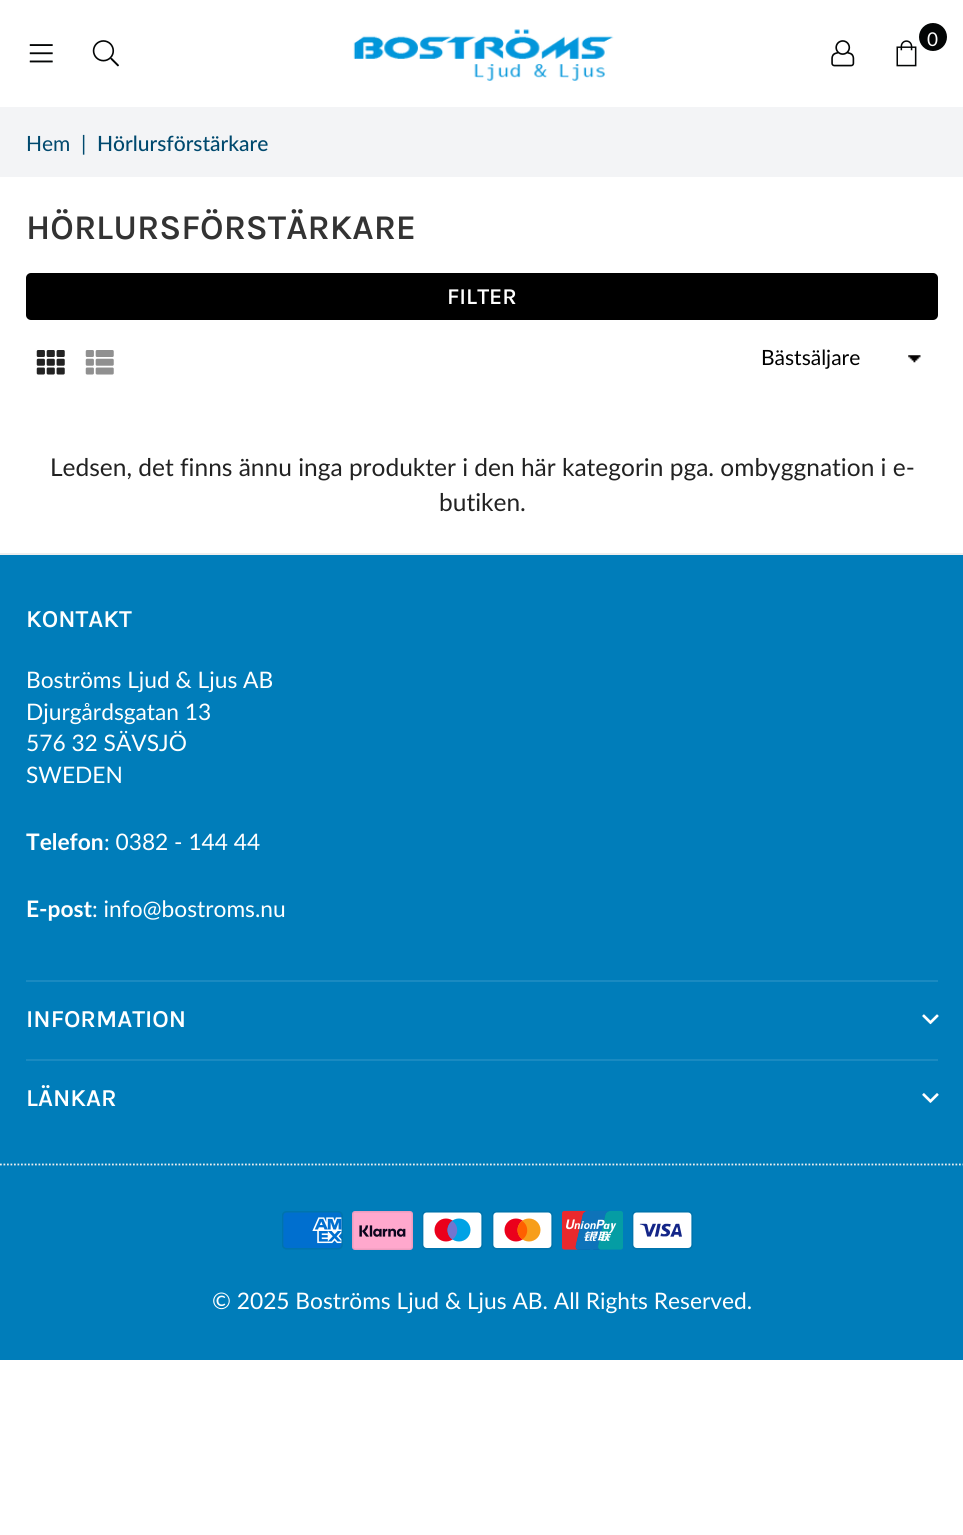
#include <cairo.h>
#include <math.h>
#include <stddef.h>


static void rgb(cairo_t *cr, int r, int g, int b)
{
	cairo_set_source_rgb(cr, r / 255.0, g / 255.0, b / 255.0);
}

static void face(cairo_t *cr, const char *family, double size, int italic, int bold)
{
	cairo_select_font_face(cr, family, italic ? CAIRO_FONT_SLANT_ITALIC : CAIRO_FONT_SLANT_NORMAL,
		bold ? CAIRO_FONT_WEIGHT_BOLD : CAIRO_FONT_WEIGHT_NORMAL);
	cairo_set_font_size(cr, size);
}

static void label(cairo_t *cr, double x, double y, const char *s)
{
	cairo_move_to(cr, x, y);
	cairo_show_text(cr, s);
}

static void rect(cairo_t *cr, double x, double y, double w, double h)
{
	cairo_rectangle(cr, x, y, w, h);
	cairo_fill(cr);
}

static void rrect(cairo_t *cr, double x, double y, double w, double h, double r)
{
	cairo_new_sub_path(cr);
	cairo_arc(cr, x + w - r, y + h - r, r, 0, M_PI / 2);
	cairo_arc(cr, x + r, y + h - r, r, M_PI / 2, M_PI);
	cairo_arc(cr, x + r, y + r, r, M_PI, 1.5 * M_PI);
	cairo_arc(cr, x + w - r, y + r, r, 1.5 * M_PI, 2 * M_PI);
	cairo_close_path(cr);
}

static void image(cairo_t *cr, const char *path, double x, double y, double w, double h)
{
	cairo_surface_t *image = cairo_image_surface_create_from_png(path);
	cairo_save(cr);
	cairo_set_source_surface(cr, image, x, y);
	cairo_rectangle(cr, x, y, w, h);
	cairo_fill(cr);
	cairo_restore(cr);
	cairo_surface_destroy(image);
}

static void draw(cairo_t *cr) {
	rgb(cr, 255, 255, 255);
	cairo_paint(cr);
	image(cr, "image0.png", 29, 44, 24, 19);
	image(cr, "image1.png", 92, 40, 27, 27);
	image(cr, "image2.png", 353, 29, 261, 52);
	image(cr, "image3.png", 831, 40, 24, 27);
	image(cr, "image4.png", 896, 40, 21, 27);
	rgb(cr, 3, 5, 5);
	cairo_arc(cr, 933, 37, 14, 0, 2 * M_PI);
	cairo_fill(cr);
	face(cr, "Lato", 19, 0, 0);
	rgb(cr, 255, 255, 255);
	label(cr, 927, 46, "0");
	rgb(cr, 243, 244, 246);
	rect(cr, 0, 107, 963, 70);
	face(cr, "Lato", 21, 0, 0);
	rgb(cr, 0, 73, 110);
	label(cr, 26, 151, "Hem");
	label(cr, 81, 151, "|");
	face(cr, "Lato Medium", 21, 0, 0);
	label(cr, 97, 151, "Hörlursförstärkare");
	face(cr, "Karla SemiBold", 35, 0, 0);
	rgb(cr, 51, 51, 51);
	label(cr, 26, 239, "HÖRLURSFÖRSTÄRKARE");
	rgb(cr, 0, 0, 0);
	rrect(cr, 26, 273, 912, 47, 5);
	cairo_fill(cr);
	face(cr, "Karla SemiBold", 22.75, 0, 0);
	rgb(cr, 255, 255, 255);
	label(cr, 447, 304, "FILTER");
	image(cr, "image5.png", 36, 350, 29, 25);
	image(cr, "image6.png", 85, 350, 29, 25);
	image(cr, "image7.png", 908, 355, 13, 8);
	face(cr, "Lato", 21, 0, 0);
	rgb(cr, 0, 0, 0);
	label(cr, 761, 365, "Bästsäljare");
	face(cr, "Lato", 24.5, 0, 0);
	rgb(cr, 34, 34, 34);
	label(cr, 50, 476, "Ledsen, det finns ännu inga produkter i den här kategorin pga. ombyggnation i e-");
	label(cr, 439, 511, "butiken.");
	rgb(cr, 0, 125, 186);
	rect(cr, 0, 555, 963, 805);
	rgb(cr, 238, 238, 238);
	rect(cr, 0, 553, 963, 2);
	face(cr, "Karla SemiBold", 24.5, 0, 0);
	rgb(cr, 255, 255, 255);
	label(cr, 26, 627, "KONTAKT");
	face(cr, "Lato", 22.75, 0, 0);
	label(cr, 26, 688, "Boströms Ljud & Ljus AB");
	label(cr, 26, 720, "Djurgårdsgatan 13");
	label(cr, 26, 751, "576 32 SÄVSJÖ");
	label(cr, 26, 783, "SWEDEN");
	face(cr, "Lato", 22.75, 0, 1);
	label(cr, 26, 850, "Telefon");
	face(cr, "Lato", 22.75, 0, 0);
	label(cr, 104, 850, ": 0382 - 144 44");
	face(cr, "Lato", 22.75, 0, 1);
	label(cr, 26, 917, "E-post");
	face(cr, "Lato", 22.75, 0, 0);
	label(cr, 92, 917, ": info@bostroms.nu");
	rgb(cr, 26, 138, 193);
	rect(cr, 26, 980, 912, 2);
	face(cr, "Karla SemiBold", 24.5, 0, 0);
	rgb(cr, 255, 255, 255);
	label(cr, 26, 1027, "INFORMATION");
	image(cr, "image8.png", 922, 1014, 17, 11);
	rgb(cr, 26, 138, 193);
	rect(cr, 26, 1059, 912, 2);
	rgb(cr, 255, 255, 255);
	label(cr, 26, 1106, "LÄNKAR");
	image(cr, "image9.png", 922, 1093, 17, 10);
	cairo_new_path(cr);
	cairo_move_to(cr, 0, 1164.5);
	cairo_line_to(cr, 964, 1164.5);
	rgb(cr, 238, 238, 238);
	cairo_set_line_width(cr, 1.8);
	cairo_set_dash(cr, (double[]){1.75, 1.75}, 2, 0);
	cairo_stroke(cr);
	image(cr, "image10.png", 282, 1211, 61, 39);
	image(cr, "image11.png", 352, 1211, 61, 39);
	image(cr, "image12.png", 422, 1211, 61, 39);
	image(cr, "image13.png", 492, 1211, 61, 39);
	image(cr, "image14.png", 562, 1210, 61, 40);
	image(cr, "image15.png", 632, 1211, 61, 39);
	face(cr, "Lato", 22.75, 0, 0);
	rgb(cr, 255, 255, 255);
	label(cr, 212, 1309, "© 2025 Boströms Ljud & Ljus AB. All Rights Reserved.");
}

int main(void) {
	cairo_surface_t *surface = cairo_image_surface_create(CAIRO_FORMAT_RGB24, 963, 1535);
	cairo_t *cr = cairo_create(surface);
	cairo_font_options_t *options = cairo_font_options_create();
	cairo_font_options_set_hint_metrics(options, CAIRO_HINT_METRICS_OFF);
	cairo_font_options_set_hint_style(options, CAIRO_HINT_STYLE_NONE);
	cairo_set_font_options(cr, options);
	cairo_set_miter_limit(cr, 4);
	draw(cr);
	cairo_surface_write_to_png(surface, "render.png");
	cairo_font_options_destroy(options);
	cairo_destroy(cr);
	cairo_surface_destroy(surface);
	return 0;
}
